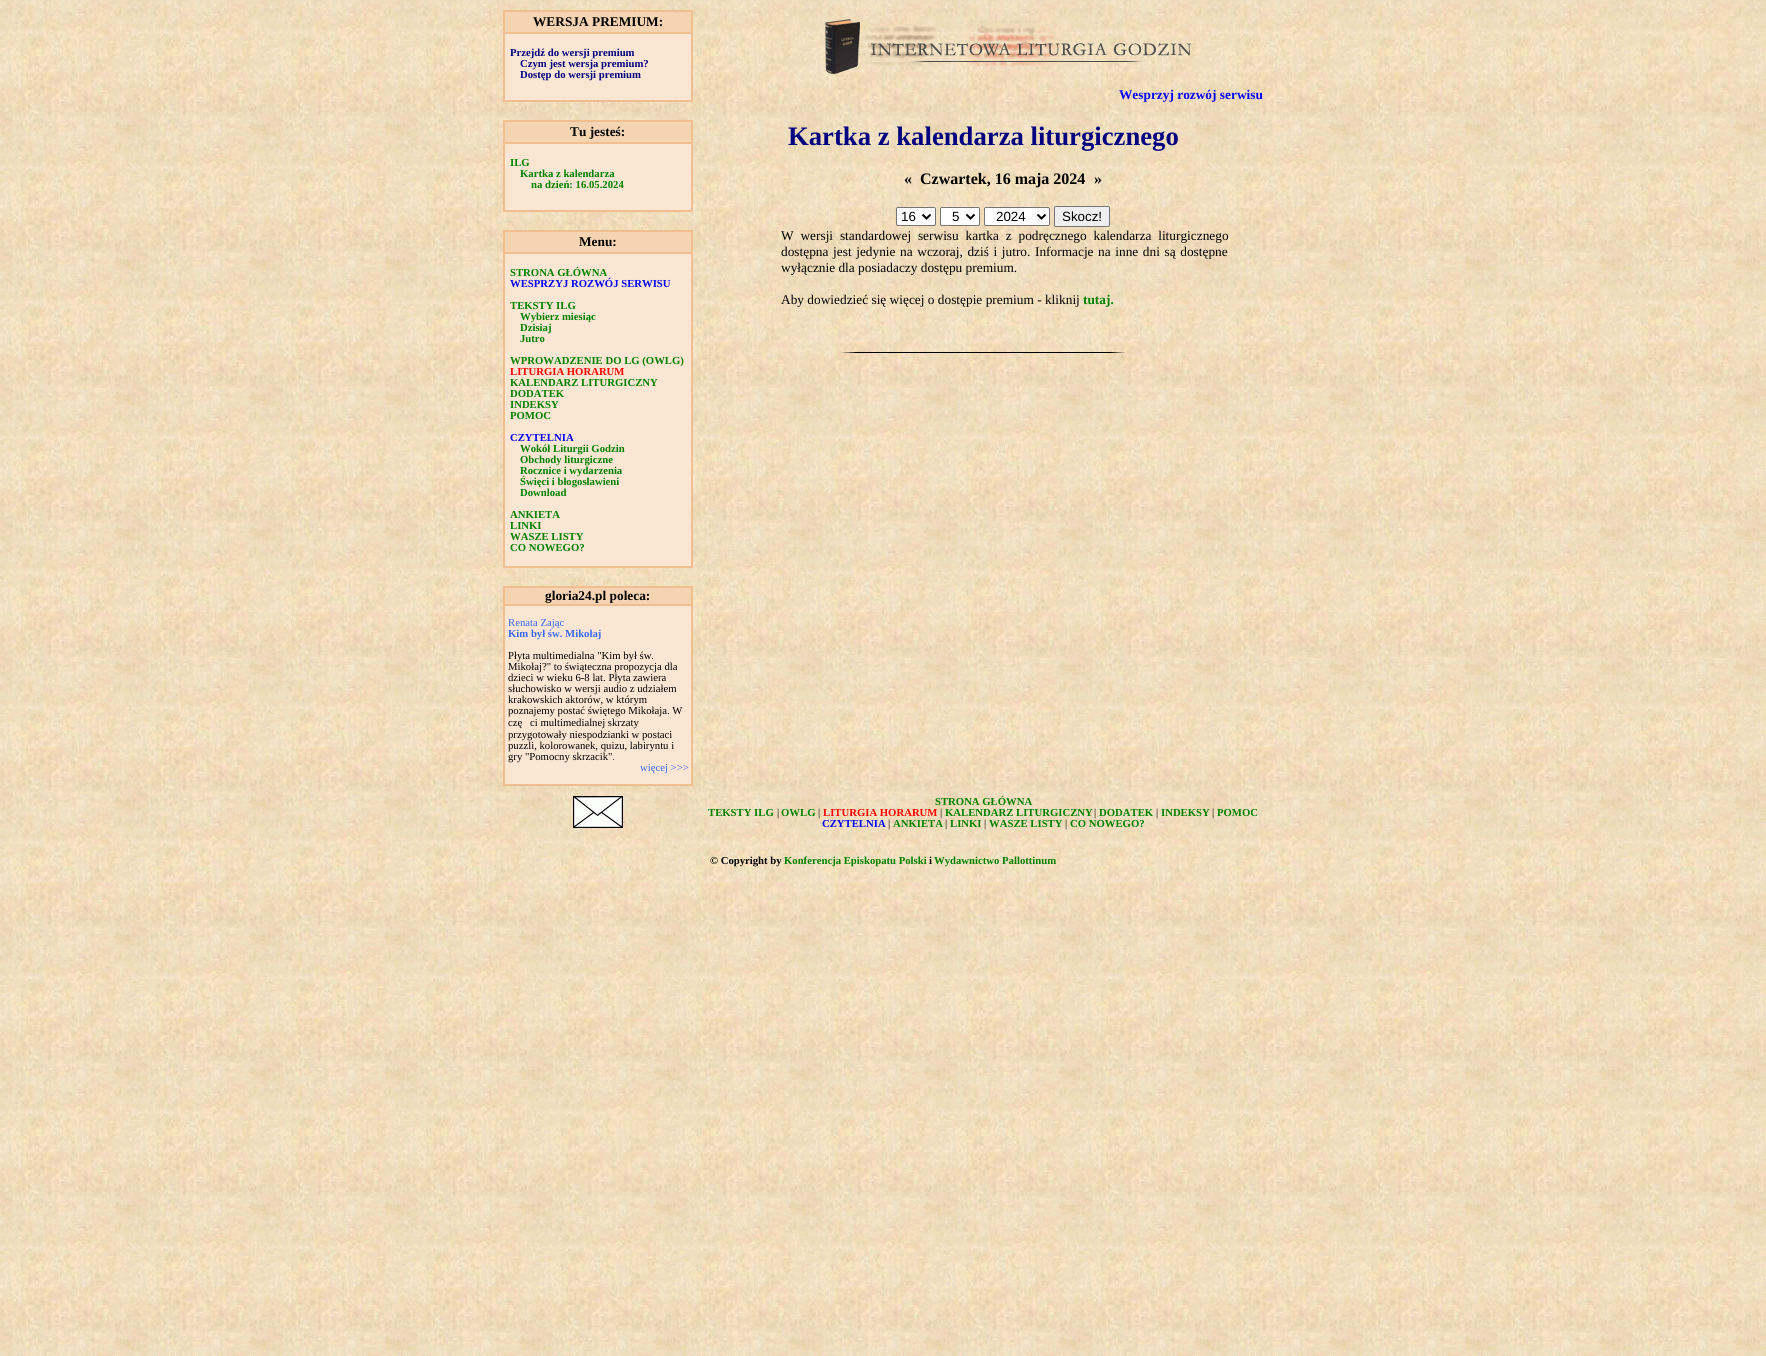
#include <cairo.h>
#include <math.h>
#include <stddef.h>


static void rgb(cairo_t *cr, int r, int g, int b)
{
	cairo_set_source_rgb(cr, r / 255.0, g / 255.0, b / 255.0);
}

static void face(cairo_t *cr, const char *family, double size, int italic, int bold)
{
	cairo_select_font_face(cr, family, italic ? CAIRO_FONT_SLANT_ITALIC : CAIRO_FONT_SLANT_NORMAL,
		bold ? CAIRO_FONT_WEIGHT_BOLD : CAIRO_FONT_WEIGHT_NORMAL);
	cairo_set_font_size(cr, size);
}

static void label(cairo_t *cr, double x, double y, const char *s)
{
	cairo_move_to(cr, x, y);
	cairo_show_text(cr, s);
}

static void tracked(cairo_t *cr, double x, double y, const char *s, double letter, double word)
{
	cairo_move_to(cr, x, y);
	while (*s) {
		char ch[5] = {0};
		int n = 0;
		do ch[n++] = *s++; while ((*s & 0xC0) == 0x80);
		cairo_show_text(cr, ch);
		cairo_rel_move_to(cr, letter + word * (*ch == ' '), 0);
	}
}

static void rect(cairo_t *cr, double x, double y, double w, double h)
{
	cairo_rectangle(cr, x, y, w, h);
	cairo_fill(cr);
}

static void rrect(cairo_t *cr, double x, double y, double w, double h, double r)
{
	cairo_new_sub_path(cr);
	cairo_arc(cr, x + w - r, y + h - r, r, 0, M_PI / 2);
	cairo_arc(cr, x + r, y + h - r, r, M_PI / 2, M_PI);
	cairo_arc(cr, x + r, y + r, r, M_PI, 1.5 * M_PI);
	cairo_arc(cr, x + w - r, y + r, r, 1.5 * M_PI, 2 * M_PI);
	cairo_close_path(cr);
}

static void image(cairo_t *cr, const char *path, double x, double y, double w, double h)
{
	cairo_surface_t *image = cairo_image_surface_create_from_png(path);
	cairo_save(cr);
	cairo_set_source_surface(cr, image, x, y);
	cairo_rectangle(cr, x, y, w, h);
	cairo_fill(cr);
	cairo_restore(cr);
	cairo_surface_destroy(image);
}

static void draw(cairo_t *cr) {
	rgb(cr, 255, 255, 255);
	cairo_paint(cr);
	image(cr, "image0.png", 0, 0, 1766, 1356);
	rgb(cr, 245, 212, 179);
	rect(cr, 505, 12, 186, 20);
	rgb(cr, 241, 191, 143);
	rect(cr, 503, 10, 190, 2);
	rect(cr, 503, 32, 190, 2);
	rect(cr, 691, 32, 2, 70);
	rect(cr, 691, 10, 2, 24);
	rect(cr, 503, 100, 190, 2);
	rect(cr, 503, 32, 2, 70);
	rect(cr, 503, 10, 2, 24);
	face(cr, "Liberation Serif", 13.35, 0, 1);
	rgb(cr, 0, 0, 0);
	label(cr, 533, 26, "WERSJA PREMIUM:");
	rgb(cr, 250, 230, 210);
	rect(cr, 505, 34, 186, 66);
	face(cr, "Liberation Serif", 10.7, 0, 1);
	rgb(cr, 0, 0, 128);
	label(cr, 510, 56, "Przejdź do wersji premium");
	label(cr, 520, 67, "Czym jest wersja premium?");
	label(cr, 520, 78, "Dostęp do wersji premium");
	rgb(cr, 245, 212, 179);
	rect(cr, 505, 122, 186, 20);
	rgb(cr, 241, 191, 143);
	rect(cr, 503, 120, 190, 2);
	rect(cr, 503, 142, 190, 2);
	rect(cr, 691, 142, 2, 70);
	rect(cr, 691, 120, 2, 24);
	rect(cr, 503, 210, 190, 2);
	rect(cr, 503, 142, 2, 70);
	rect(cr, 503, 120, 2, 24);
	face(cr, "Liberation Serif", 13.35, 0, 1);
	rgb(cr, 0, 0, 0);
	label(cr, 570, 136, "Tu jesteś:");
	rgb(cr, 250, 230, 210);
	rect(cr, 505, 144, 186, 66);
	face(cr, "Liberation Serif", 10.7, 0, 1);
	rgb(cr, 0, 128, 0);
	label(cr, 510, 166, "ILG");
	label(cr, 520, 177, "Kartka z kalendarza");
	label(cr, 531, 188, "na dzień: 16.05.2024");
	rgb(cr, 245, 212, 179);
	rect(cr, 505, 232, 186, 20);
	rgb(cr, 241, 191, 143);
	rect(cr, 503, 230, 190, 2);
	rect(cr, 503, 252, 190, 2);
	rect(cr, 691, 252, 2, 316);
	rect(cr, 691, 230, 2, 24);
	rect(cr, 503, 566, 190, 2);
	rect(cr, 503, 252, 2, 316);
	rect(cr, 503, 230, 2, 24);
	face(cr, "Liberation Serif", 13.35, 0, 1);
	rgb(cr, 0, 0, 0);
	label(cr, 579, 246, "Menu:");
	rgb(cr, 250, 230, 210);
	rect(cr, 505, 254, 186, 312);
	face(cr, "Liberation Serif", 10.7, 0, 1);
	rgb(cr, 0, 128, 0);
	label(cr, 510, 276, "STRONA GŁÓWNA");
	rgb(cr, 0, 0, 255);
	label(cr, 510, 287, "WESPRZYJ ROZWÓJ SERWISU");
	rgb(cr, 0, 128, 0);
	label(cr, 510, 309, "TEKSTY ILG");
	label(cr, 520, 320, "Wybierz miesiąc");
	label(cr, 520, 331, "Dzisiaj");
	label(cr, 520, 342, "Jutro");
	label(cr, 510, 364, "WPROWADZENIE DO LG (OWLG)");
	rgb(cr, 255, 0, 0);
	label(cr, 510, 375, "LITURGIA HORARUM");
	rgb(cr, 0, 128, 0);
	label(cr, 510, 386, "KALENDARZ LITURGICZNY");
	label(cr, 510, 397, "DODATEK");
	label(cr, 510, 408, "INDEKSY");
	label(cr, 510, 419, "POMOC");
	rgb(cr, 0, 0, 255);
	label(cr, 510, 441, "CZYTELNIA");
	rgb(cr, 0, 128, 0);
	label(cr, 520, 452, "Wokół Liturgii Godzin");
	label(cr, 520, 463, "Obchody liturgiczne");
	label(cr, 520, 474, "Rocznice i wydarzenia");
	label(cr, 520, 485, "Święci i błogosławieni");
	label(cr, 520, 496, "Download");
	label(cr, 510, 518, "ANKIETA");
	label(cr, 510, 529, "LINKI");
	label(cr, 510, 540, "WASZE LISTY");
	label(cr, 510, 551, "CO NOWEGO?");
	cairo_rectangle(cr, 503.5, 586.5, 189, 199);
	rgb(cr, 241, 191, 143);
	cairo_set_line_width(cr, 1);
	cairo_stroke(cr);
	rgb(cr, 245, 212, 179);
	cairo_rectangle(cr, 504.5, 587.5, 187, 17);
	cairo_fill_preserve(cr);
	rgb(cr, 241, 191, 143);
	cairo_stroke(cr);
	face(cr, "Liberation Serif", 13.35, 0, 1);
	rgb(cr, 0, 0, 0);
	label(cr, 545, 600, "gloria24.pl poleca:");
	rgb(cr, 250, 230, 210);
	cairo_rectangle(cr, 504.5, 605.5, 187, 179);
	cairo_fill_preserve(cr);
	rgb(cr, 241, 191, 143);
	cairo_stroke(cr);
	face(cr, "Liberation Serif", 10.7, 0, 0);
	rgb(cr, 59, 106, 249);
	label(cr, 508, 626, "Renata Zając");
	face(cr, "Liberation Serif", 10.7, 0, 1);
	label(cr, 508, 637, "Kim był św. Mikołaj");
	face(cr, "Liberation Serif", 10.7, 0, 0);
	rgb(cr, 0, 0, 0);
	label(cr, 508, 659, "Płyta multimedialna \"Kim był św.");
	label(cr, 508, 670, "Mikołaj?\" to świąteczna propozycja dla");
	label(cr, 508, 681, "dzieci w wieku 6-8 lat. Płyta zawiera");
	label(cr, 508, 692, "słuchowisko w wersji audio z udziałem");
	label(cr, 508, 703, "krakowskich aktorów, w którym");
	label(cr, 508, 714, "poznajemy postać świętego Mikołaja. W");
	label(cr, 508, 726, "czę");
	label(cr, 530, 726, "ci multimedialnej skrzaty");
	label(cr, 508, 738, "przygotowały niespodzianki w postaci");
	label(cr, 508, 749, "puzzli, kolorowanek, quizu, labiryntu i");
	label(cr, 508, 760, "gry \"Pomocny skrzacik\".");
	rgb(cr, 59, 106, 249);
	label(cr, 640, 771, "więcej >>>");
	image(cr, "image1.png", 825, 11, 366, 63);
	face(cr, "Liberation Serif", 13.35, 0, 1);
	rgb(cr, 0, 0, 255);
	label(cr, 1119, 99, "Wesprzyj rozwój serwisu");
	face(cr, "Liberation Serif", 26.7, 0, 1);
	rgb(cr, 0, 0, 128);
	label(cr, 788, 145, "Kartka z kalendarza liturgicznego");
	face(cr, "Liberation Serif", 16, 0, 1);
	rgb(cr, 0, 0, 0);
	label(cr, 904, 184, "«");
	label(cr, 920, 184, "Czwartek, 16 maja 2024");
	label(cr, 1094, 184, "»");
	rgb(cr, 255, 255, 255);
	rrect(cr, 896.5, 207.5, 39, 18, 1.5);
	cairo_fill_preserve(cr);
	rgb(cr, 118, 118, 118);
	cairo_stroke(cr);
	cairo_new_path(cr);
	cairo_move_to(cr, 922.5, 214.5);
	cairo_line_to(cr, 926.5, 218.5);
	cairo_line_to(cr, 930.5, 214.5);
	rgb(cr, 0, 0, 0);
	cairo_set_line_width(cr, 2);
	cairo_stroke(cr);
	face(cr, "Liberation Sans", 13.35, 0, 0);
	label(cr, 901, 221, "16");
	rgb(cr, 255, 255, 255);
	rrect(cr, 940.5, 207.5, 39, 18, 1.5);
	cairo_fill_preserve(cr);
	rgb(cr, 118, 118, 118);
	cairo_set_line_width(cr, 1);
	cairo_stroke(cr);
	cairo_new_path(cr);
	cairo_move_to(cr, 966.5, 214.5);
	cairo_line_to(cr, 970.5, 218.5);
	cairo_line_to(cr, 974.5, 214.5);
	rgb(cr, 0, 0, 0);
	cairo_set_line_width(cr, 2);
	cairo_stroke(cr);
	label(cr, 952, 221, "5");
	rgb(cr, 255, 255, 255);
	rrect(cr, 984.5, 207.5, 65, 18, 1.5);
	cairo_fill_preserve(cr);
	rgb(cr, 118, 118, 118);
	cairo_set_line_width(cr, 1);
	cairo_stroke(cr);
	cairo_new_path(cr);
	cairo_move_to(cr, 1037.5, 214.5);
	cairo_line_to(cr, 1041.5, 218.5);
	cairo_line_to(cr, 1045.5, 214.5);
	rgb(cr, 0, 0, 0);
	cairo_set_line_width(cr, 2);
	cairo_stroke(cr);
	label(cr, 996, 221, "2024");
	rgb(cr, 239, 239, 239);
	rrect(cr, 1054.5, 206.5, 55, 20, 1.5);
	cairo_fill_preserve(cr);
	rgb(cr, 118, 118, 118);
	cairo_set_line_width(cr, 1);
	cairo_stroke(cr);
	rgb(cr, 0, 0, 0);
	label(cr, 1062, 221, "Skocz!");
	face(cr, "Liberation Serif", 13.35, 0, 0);
	tracked(cr, 781, 240, "W wersji standardowej serwisu kartka z podręcznego kalendarza liturgicznego", 0, 3.5);
	tracked(cr, 781, 256, "dostępna jest jedynie na wczoraj, dziś i jutro. Informacje na inne dni są dostępne", 0, 1.25);
	label(cr, 781, 272, "wyłącznie dla posiadaczy dostępu premium.");
	label(cr, 781, 304, "Aby dowiedzieć się więcej o dostępie premium - kliknij");
	face(cr, "Liberation Serif", 13.35, 0, 1);
	rgb(cr, 0, 128, 0);
	label(cr, 1083, 304, "tutaj.");
	image(cr, "image2.png", 841, 352, 284, 1);
	image(cr, "image3.png", 573, 796, 50, 32);
	face(cr, "Liberation Serif", 10.7, 0, 1);
	label(cr, 935, 805, "STRONA GŁÓWNA");
	label(cr, 708, 816, "TEKSTY ILG");
	face(cr, "Liberation Serif", 10.7, 0, 0);
	rgb(cr, 0, 0, 0);
	label(cr, 777, 816, "|");
	face(cr, "Liberation Serif", 10.7, 0, 1);
	rgb(cr, 0, 128, 0);
	label(cr, 781, 816, "OWLG");
	face(cr, "Liberation Serif", 10.7, 0, 0);
	rgb(cr, 0, 0, 0);
	label(cr, 818, 816, "|");
	face(cr, "Liberation Serif", 10.7, 0, 1);
	rgb(cr, 255, 0, 0);
	label(cr, 823, 816, "LITURGIA HORARUM");
	face(cr, "Liberation Serif", 10.7, 0, 0);
	rgb(cr, 0, 0, 0);
	label(cr, 940, 816, "|");
	face(cr, "Liberation Serif", 10.7, 0, 1);
	rgb(cr, 0, 128, 0);
	label(cr, 945, 816, "KALENDARZ LITURGICZNY");
	face(cr, "Liberation Serif", 10.7, 0, 0);
	rgb(cr, 0, 0, 0);
	label(cr, 1094, 816, "|");
	face(cr, "Liberation Serif", 10.7, 0, 1);
	rgb(cr, 0, 128, 0);
	label(cr, 1099, 816, "DODATEK");
	face(cr, "Liberation Serif", 10.7, 0, 0);
	rgb(cr, 0, 0, 0);
	label(cr, 1156, 816, "|");
	face(cr, "Liberation Serif", 10.7, 0, 1);
	rgb(cr, 0, 128, 0);
	label(cr, 1161, 816, "INDEKSY");
	face(cr, "Liberation Serif", 10.7, 0, 0);
	rgb(cr, 0, 0, 0);
	label(cr, 1212, 816, "|");
	face(cr, "Liberation Serif", 10.7, 0, 1);
	rgb(cr, 0, 128, 0);
	label(cr, 1217, 816, "POMOC");
	rgb(cr, 0, 0, 255);
	label(cr, 822, 827, "CZYTELNIA");
	face(cr, "Liberation Serif", 10.7, 0, 0);
	rgb(cr, 0, 0, 0);
	label(cr, 888, 827, "|");
	face(cr, "Liberation Serif", 10.7, 0, 1);
	rgb(cr, 0, 128, 0);
	label(cr, 893, 827, "ANKIETA");
	face(cr, "Liberation Serif", 10.7, 0, 0);
	rgb(cr, 0, 0, 0);
	label(cr, 945, 827, "|");
	face(cr, "Liberation Serif", 10.7, 0, 1);
	rgb(cr, 0, 128, 0);
	label(cr, 950, 827, "LINKI");
	face(cr, "Liberation Serif", 10.7, 0, 0);
	rgb(cr, 0, 0, 0);
	label(cr, 984, 827, "|");
	face(cr, "Liberation Serif", 10.7, 0, 1);
	rgb(cr, 0, 128, 0);
	label(cr, 989, 827, "WASZE LISTY");
	face(cr, "Liberation Serif", 10.7, 0, 0);
	rgb(cr, 0, 0, 0);
	label(cr, 1065, 827, "|");
	face(cr, "Liberation Serif", 10.7, 0, 1);
	rgb(cr, 0, 128, 0);
	label(cr, 1070, 827, "CO NOWEGO?");
	rgb(cr, 0, 0, 0);
	label(cr, 710, 864, "© Copyright by");
	rgb(cr, 0, 128, 0);
	label(cr, 784, 864, "Konferencja Episkopatu Polski");
	rgb(cr, 0, 0, 0);
	label(cr, 929, 864, "i");
	rgb(cr, 0, 128, 0);
	label(cr, 934, 864, "Wydawnictwo Pallottinum");
}

int main(void) {
	cairo_surface_t *surface = cairo_image_surface_create(CAIRO_FORMAT_RGB24, 1766, 1356);
	cairo_t *cr = cairo_create(surface);
	cairo_font_options_t *options = cairo_font_options_create();
	cairo_font_options_set_hint_metrics(options, CAIRO_HINT_METRICS_OFF);
	cairo_font_options_set_hint_style(options, CAIRO_HINT_STYLE_NONE);
	cairo_set_font_options(cr, options);
	cairo_set_miter_limit(cr, 4);
	draw(cr);
	cairo_surface_write_to_png(surface, "render.png");
	cairo_font_options_destroy(options);
	cairo_destroy(cr);
	cairo_surface_destroy(surface);
	return 0;
}
